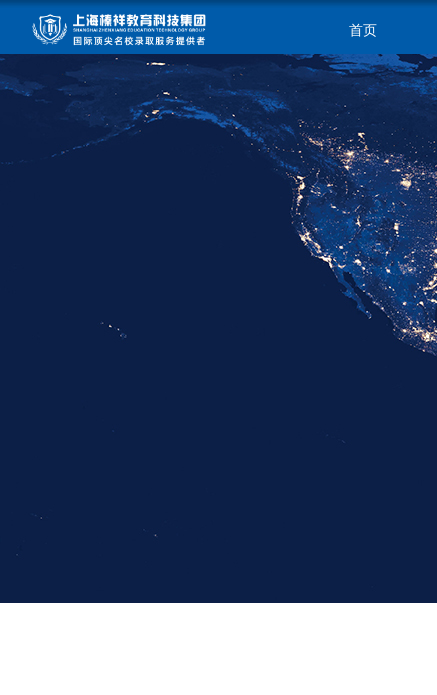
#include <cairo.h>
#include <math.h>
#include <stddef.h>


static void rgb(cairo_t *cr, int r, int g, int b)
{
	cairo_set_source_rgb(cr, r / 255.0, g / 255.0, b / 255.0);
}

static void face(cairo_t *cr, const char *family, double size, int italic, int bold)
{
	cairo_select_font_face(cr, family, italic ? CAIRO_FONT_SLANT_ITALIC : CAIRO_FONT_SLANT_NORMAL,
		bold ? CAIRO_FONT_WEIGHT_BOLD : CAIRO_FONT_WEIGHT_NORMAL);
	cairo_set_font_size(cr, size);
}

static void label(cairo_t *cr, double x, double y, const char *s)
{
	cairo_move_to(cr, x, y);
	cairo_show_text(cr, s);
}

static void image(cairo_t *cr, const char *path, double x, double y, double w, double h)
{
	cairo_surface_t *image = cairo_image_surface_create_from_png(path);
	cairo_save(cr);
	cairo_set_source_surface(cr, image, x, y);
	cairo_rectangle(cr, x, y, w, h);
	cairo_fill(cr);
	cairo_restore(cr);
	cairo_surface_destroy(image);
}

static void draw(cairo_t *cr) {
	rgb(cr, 255, 255, 255);
	cairo_paint(cr);
	image(cr, "image1.png", 0, 0, 437, 54);
	image(cr, "image0.png", 32, 14, 174, 32);
	face(cr, "WenQuanYi Zen Hei Medium", 14, 0, 0);
	rgb(cr, 255, 255, 255);
	label(cr, 349, 35, "首页");
	image(cr, "image2.png", 0, 54, 437, 549);
}

int main(void) {
	cairo_surface_t *surface = cairo_image_surface_create(CAIRO_FORMAT_RGB24, 437, 695);
	cairo_t *cr = cairo_create(surface);
	cairo_font_options_t *options = cairo_font_options_create();
	cairo_font_options_set_hint_metrics(options, CAIRO_HINT_METRICS_OFF);
	cairo_font_options_set_hint_style(options, CAIRO_HINT_STYLE_NONE);
	cairo_set_font_options(cr, options);
	cairo_set_miter_limit(cr, 4);
	draw(cr);
	cairo_surface_write_to_png(surface, "render.png");
	cairo_font_options_destroy(options);
	cairo_destroy(cr);
	cairo_surface_destroy(surface);
	return 0;
}
